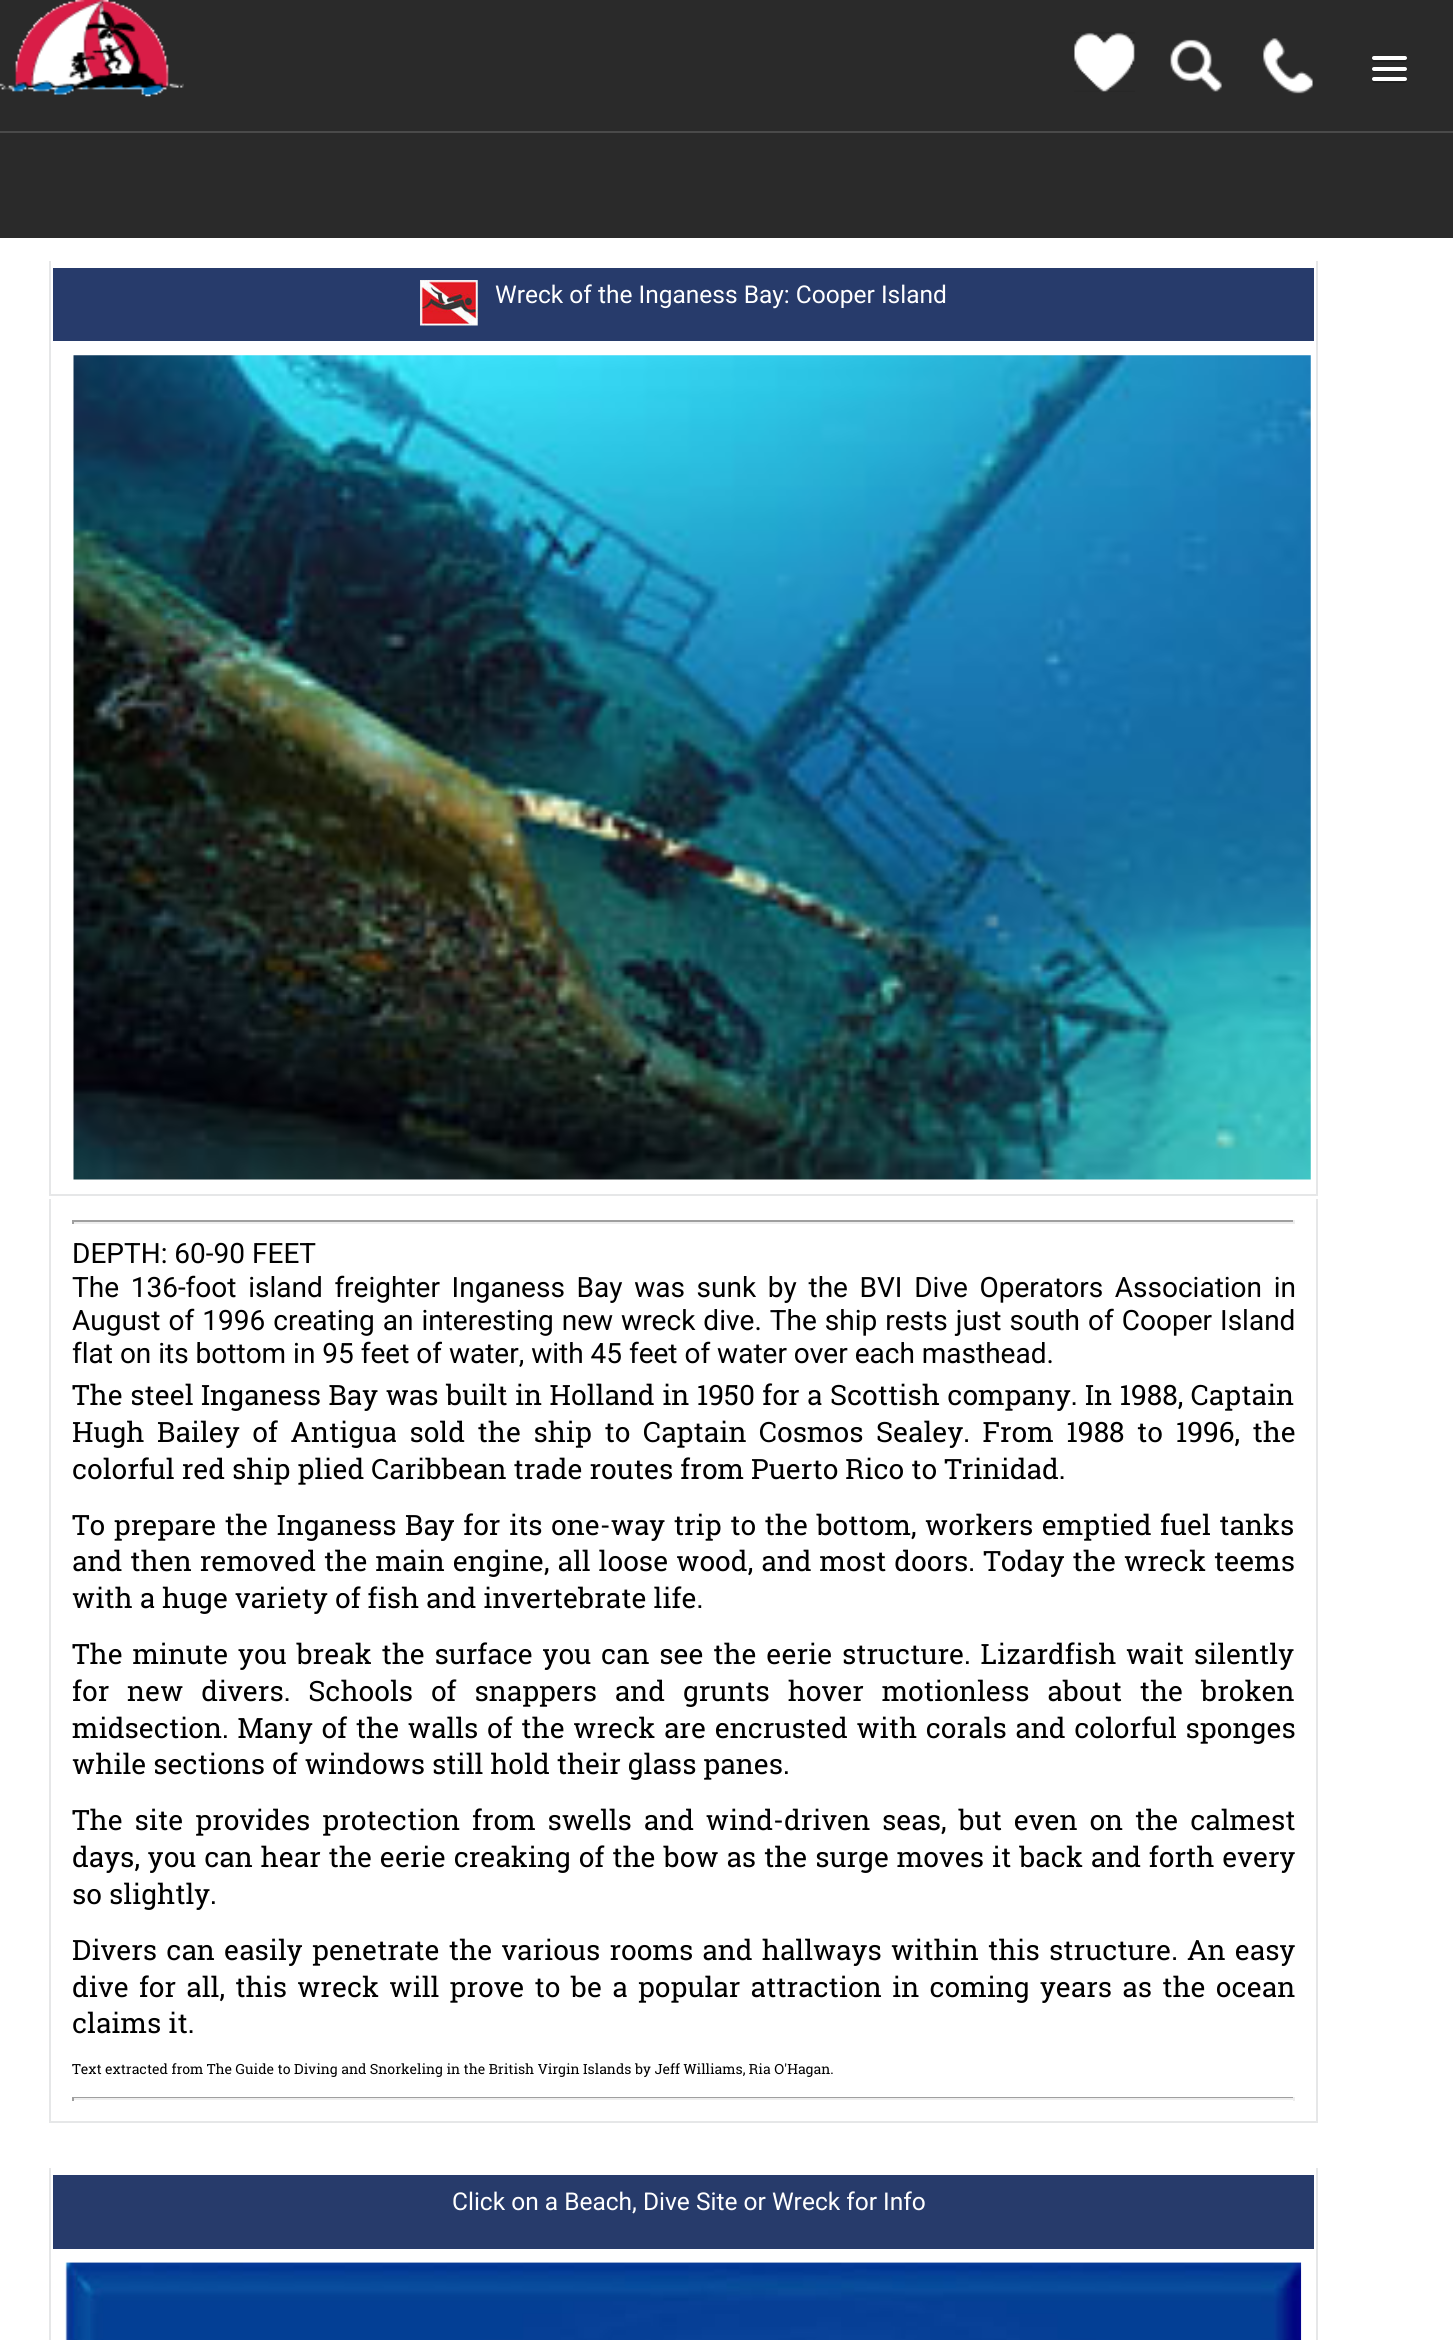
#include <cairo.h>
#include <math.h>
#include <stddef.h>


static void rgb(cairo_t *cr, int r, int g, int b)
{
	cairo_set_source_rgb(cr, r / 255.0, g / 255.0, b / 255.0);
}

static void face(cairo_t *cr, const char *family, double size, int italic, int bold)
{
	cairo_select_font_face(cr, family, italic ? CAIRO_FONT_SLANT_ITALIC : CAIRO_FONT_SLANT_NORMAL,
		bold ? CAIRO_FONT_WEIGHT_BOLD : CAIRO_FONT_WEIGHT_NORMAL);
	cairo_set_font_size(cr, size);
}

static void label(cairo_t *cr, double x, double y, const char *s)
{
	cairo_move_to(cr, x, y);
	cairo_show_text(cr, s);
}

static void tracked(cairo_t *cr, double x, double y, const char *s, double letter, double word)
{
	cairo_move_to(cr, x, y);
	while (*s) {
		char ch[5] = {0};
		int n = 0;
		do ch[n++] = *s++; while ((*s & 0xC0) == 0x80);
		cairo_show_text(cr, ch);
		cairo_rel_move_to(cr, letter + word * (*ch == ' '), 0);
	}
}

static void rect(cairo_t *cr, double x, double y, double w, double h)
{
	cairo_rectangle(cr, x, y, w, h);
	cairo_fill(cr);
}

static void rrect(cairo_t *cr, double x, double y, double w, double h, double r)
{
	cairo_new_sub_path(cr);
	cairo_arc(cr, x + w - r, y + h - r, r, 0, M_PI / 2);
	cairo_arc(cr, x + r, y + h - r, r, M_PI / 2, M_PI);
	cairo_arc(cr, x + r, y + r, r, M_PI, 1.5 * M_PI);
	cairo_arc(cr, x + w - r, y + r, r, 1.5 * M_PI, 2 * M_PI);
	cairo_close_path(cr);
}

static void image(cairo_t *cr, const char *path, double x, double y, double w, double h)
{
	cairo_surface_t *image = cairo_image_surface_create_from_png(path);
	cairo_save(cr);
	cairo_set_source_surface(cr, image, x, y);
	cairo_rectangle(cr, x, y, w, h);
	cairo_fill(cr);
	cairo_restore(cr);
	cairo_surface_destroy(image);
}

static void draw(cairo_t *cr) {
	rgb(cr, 255, 255, 255);
	cairo_paint(cr);
	rgb(cr, 42, 42, 42);
	rect(cr, 0, 0, 1453, 131);
	rgb(cr, 74, 74, 74);
	rect(cr, 0, 131, 1453, 2);
	image(cr, "image0.png", 0, 0, 184, 97);
	image(cr, "image1.png", 1074, 32, 61, 60);
	image(cr, "image2.png", 1170, 39, 52, 53);
	image(cr, "image3.png", 1263, 38, 50, 56);
	rgb(cr, 32, 32, 32);
	cairo_new_path(cr);
	cairo_move_to(cr, 1372.5, 59);
	cairo_line_to(cr, 1372, 60.5);
	cairo_curve_to(cr, 1372.5, 63, 1378, 62, 1379, 62);
	cairo_line_to(cr, 1400, 62);
	cairo_curve_to(cr, 1401, 62, 1406.5, 63, 1407, 60.5);
	cairo_line_to(cr, 1406.5, 59);
	cairo_line_to(cr, 1405.5, 59.5);
	cairo_line_to(cr, 1373.5, 59.5);
	cairo_close_path(cr);
	cairo_fill(cr);
	rgb(cr, 255, 255, 255);
	rrect(cr, 1372, 56, 35, 4, 2);
	cairo_fill(cr);
	rgb(cr, 32, 32, 32);
	cairo_new_path(cr);
	cairo_move_to(cr, 1372, 69);
	cairo_curve_to(cr, 1370, 73, 1378.5, 72, 1379, 72);
	cairo_line_to(cr, 1400, 72);
	cairo_curve_to(cr, 1400.5, 72, 1409, 73, 1407, 69);
	cairo_line_to(cr, 1405.5, 70);
	cairo_line_to(cr, 1373.5, 70);
	cairo_close_path(cr);
	cairo_fill(cr);
	rgb(cr, 255, 255, 255);
	rrect(cr, 1372, 67, 35, 4, 2);
	cairo_fill(cr);
	rgb(cr, 32, 32, 32);
	cairo_new_path(cr);
	cairo_move_to(cr, 1372.5, 80);
	cairo_line_to(cr, 1372, 81.5);
	cairo_curve_to(cr, 1372.5, 84, 1378, 83, 1379, 83);
	cairo_line_to(cr, 1400, 83);
	cairo_curve_to(cr, 1401, 83, 1406.5, 84, 1407, 81.5);
	cairo_line_to(cr, 1406.5, 80);
	cairo_line_to(cr, 1405.5, 80.5);
	cairo_line_to(cr, 1373.5, 80.5);
	cairo_close_path(cr);
	cairo_fill(cr);
	rgb(cr, 255, 255, 255);
	rrect(cr, 1372, 77, 35, 4, 2);
	cairo_fill(cr);
	rgb(cr, 42, 42, 42);
	rect(cr, 0, 133, 1453, 105);
	rgb(cr, 230, 231, 232);
	rect(cr, 1316, 261, 2, 934);
	rect(cr, 49, 1194, 1269, 2);
	rect(cr, 49, 261, 2, 934);
	rgb(cr, 39, 59, 107);
	rect(cr, 53, 268, 1261, 73);
	image(cr, "image4.png", 420, 280, 58, 46);
	face(cr, "Roboto", 24.5, 0, 0);
	rgb(cr, 255, 255, 255);
	label(cr, 495, 303, "Wreck of the Inganess Bay: Cooper Island");
	image(cr, "image5.png", 73, 355, 1238, 825);
	rgb(cr, 230, 231, 232);
	rect(cr, 1316, 1199, 2, 924);
	rect(cr, 49, 2121, 1269, 2);
	rect(cr, 49, 1199, 2, 924);
	rgb(cr, 159, 159, 159);
	rect(cr, 72, 1220, 1223, 2);
	rgb(cr, 238, 238, 238);
	rect(cr, 1293, 1220, 2, 4);
	rect(cr, 72, 1222, 1223, 2);
	rgb(cr, 159, 159, 159);
	rect(cr, 72, 1220, 2, 4);
	face(cr, "Roboto", 28, 0, 0);
	rgb(cr, 0, 0, 0);
	label(cr, 72, 1263, "DEPTH: 60-90 FEET");
	tracked(cr, 72, 1297, "The 136-foot island freighter Inganess Bay was sunk by the BVI Dive Operators Association in", 0, 4.75);
	tracked(cr, 72, 1330, "August of 1996 creating an interesting new wreck dive. The ship rests just south of Cooper Island", 0, 1.1);
	label(cr, 72, 1363, "flat on its bottom in 95 feet of water, with 45 feet of water over each masthead.");
	face(cr, "Roboto Slab", 28, 0, 0);
	tracked(cr, 72, 1405, "The steel Inganess Bay was built in Holland in 1950 for a Scottish company. In 1988, Captain", 0, 0.5);
	tracked(cr, 72, 1442, "Hugh Bailey of Antigua sold the ship to Captain Cosmos Sealey. From 1988 to 1996, the", 0, 5.6);
	label(cr, 72, 1479, "colorful red ship plied Caribbean trade routes from Puerto Rico to Trinidad.");
	tracked(cr, 72, 1535, "To prepare the Inganess Bay for its one-way trip to the bottom, workers emptied fuel tanks", 0, 1.5);
	tracked(cr, 72, 1571, "and then removed the main engine, all loose wood, and most doors. Today the wreck teems", 0, 1.1);
	label(cr, 72, 1608, "with a huge variety of fish and invertebrate life.");
	tracked(cr, 72, 1664, "The minute you break the surface you can see the eerie structure. Lizardfish wait silently", 0, 2.75);
	tracked(cr, 72, 1701, "for new divers. Schools of snappers and grunts hover motionless about the broken", 0, 10.9);
	tracked(cr, 72, 1738, "midsection. Many of the walls of the wreck are encrusted with corals and colorful sponges", 0, 1.7);
	label(cr, 72, 1774, "while sections of windows still hold their glass panes.");
	tracked(cr, 72, 1830, "The site provides protection from swells and wind-driven seas, but even on the calmest", 0, 4.9);
	tracked(cr, 72, 1867, "days, you can hear the eerie creaking of the bow as the surge moves it back and forth every", 0, 0.9);
	label(cr, 72, 1904, "so slightly.");
	tracked(cr, 72, 1960, "Divers can easily penetrate the various rooms and hallways within this structure. An easy", 0, 2.25);
	tracked(cr, 72, 1997, "dive for all, this wreck will prove to be a popular attraction in coming years as the ocean", 0, 3.25);
	label(cr, 72, 2033, "claims it.");
	face(cr, "Roboto Slab", 14, 0, 0);
	label(cr, 72, 2074, "Text extracted from The Guide to Diving and Snorkeling in the British Virgin Islands by Jeff Williams, Ria O'Hagan.");
	rgb(cr, 159, 159, 159);
	rect(cr, 72, 2097, 1223, 1);
	rgb(cr, 238, 238, 238);
	rect(cr, 1293, 2097, 2, 4);
	rect(cr, 72, 2098, 1223, 2);
	rgb(cr, 159, 159, 159);
	rect(cr, 72, 2097, 2, 4);
	rgb(cr, 230, 231, 232);
	rect(cr, 1316, 2168, 2, 172);
	rect(cr, 49, 2168, 2, 172);
	rgb(cr, 39, 59, 107);
	rect(cr, 53, 2175, 1261, 74);
	face(cr, "Roboto", 24.5, 0, 0);
	rgb(cr, 255, 255, 255);
	label(cr, 452, 2210, "Click on a Beach, Dive Site or Wreck for Info");
	image(cr, "image6.png", 65, 2262, 1237, 78);
}

int main(void) {
	cairo_surface_t *surface = cairo_image_surface_create(CAIRO_FORMAT_RGB24, 1453, 2340);
	cairo_t *cr = cairo_create(surface);
	cairo_font_options_t *options = cairo_font_options_create();
	cairo_font_options_set_hint_metrics(options, CAIRO_HINT_METRICS_OFF);
	cairo_font_options_set_hint_style(options, CAIRO_HINT_STYLE_NONE);
	cairo_set_font_options(cr, options);
	cairo_set_miter_limit(cr, 4);
	draw(cr);
	cairo_surface_write_to_png(surface, "render.png");
	cairo_font_options_destroy(options);
	cairo_destroy(cr);
	cairo_surface_destroy(surface);
	return 0;
}
